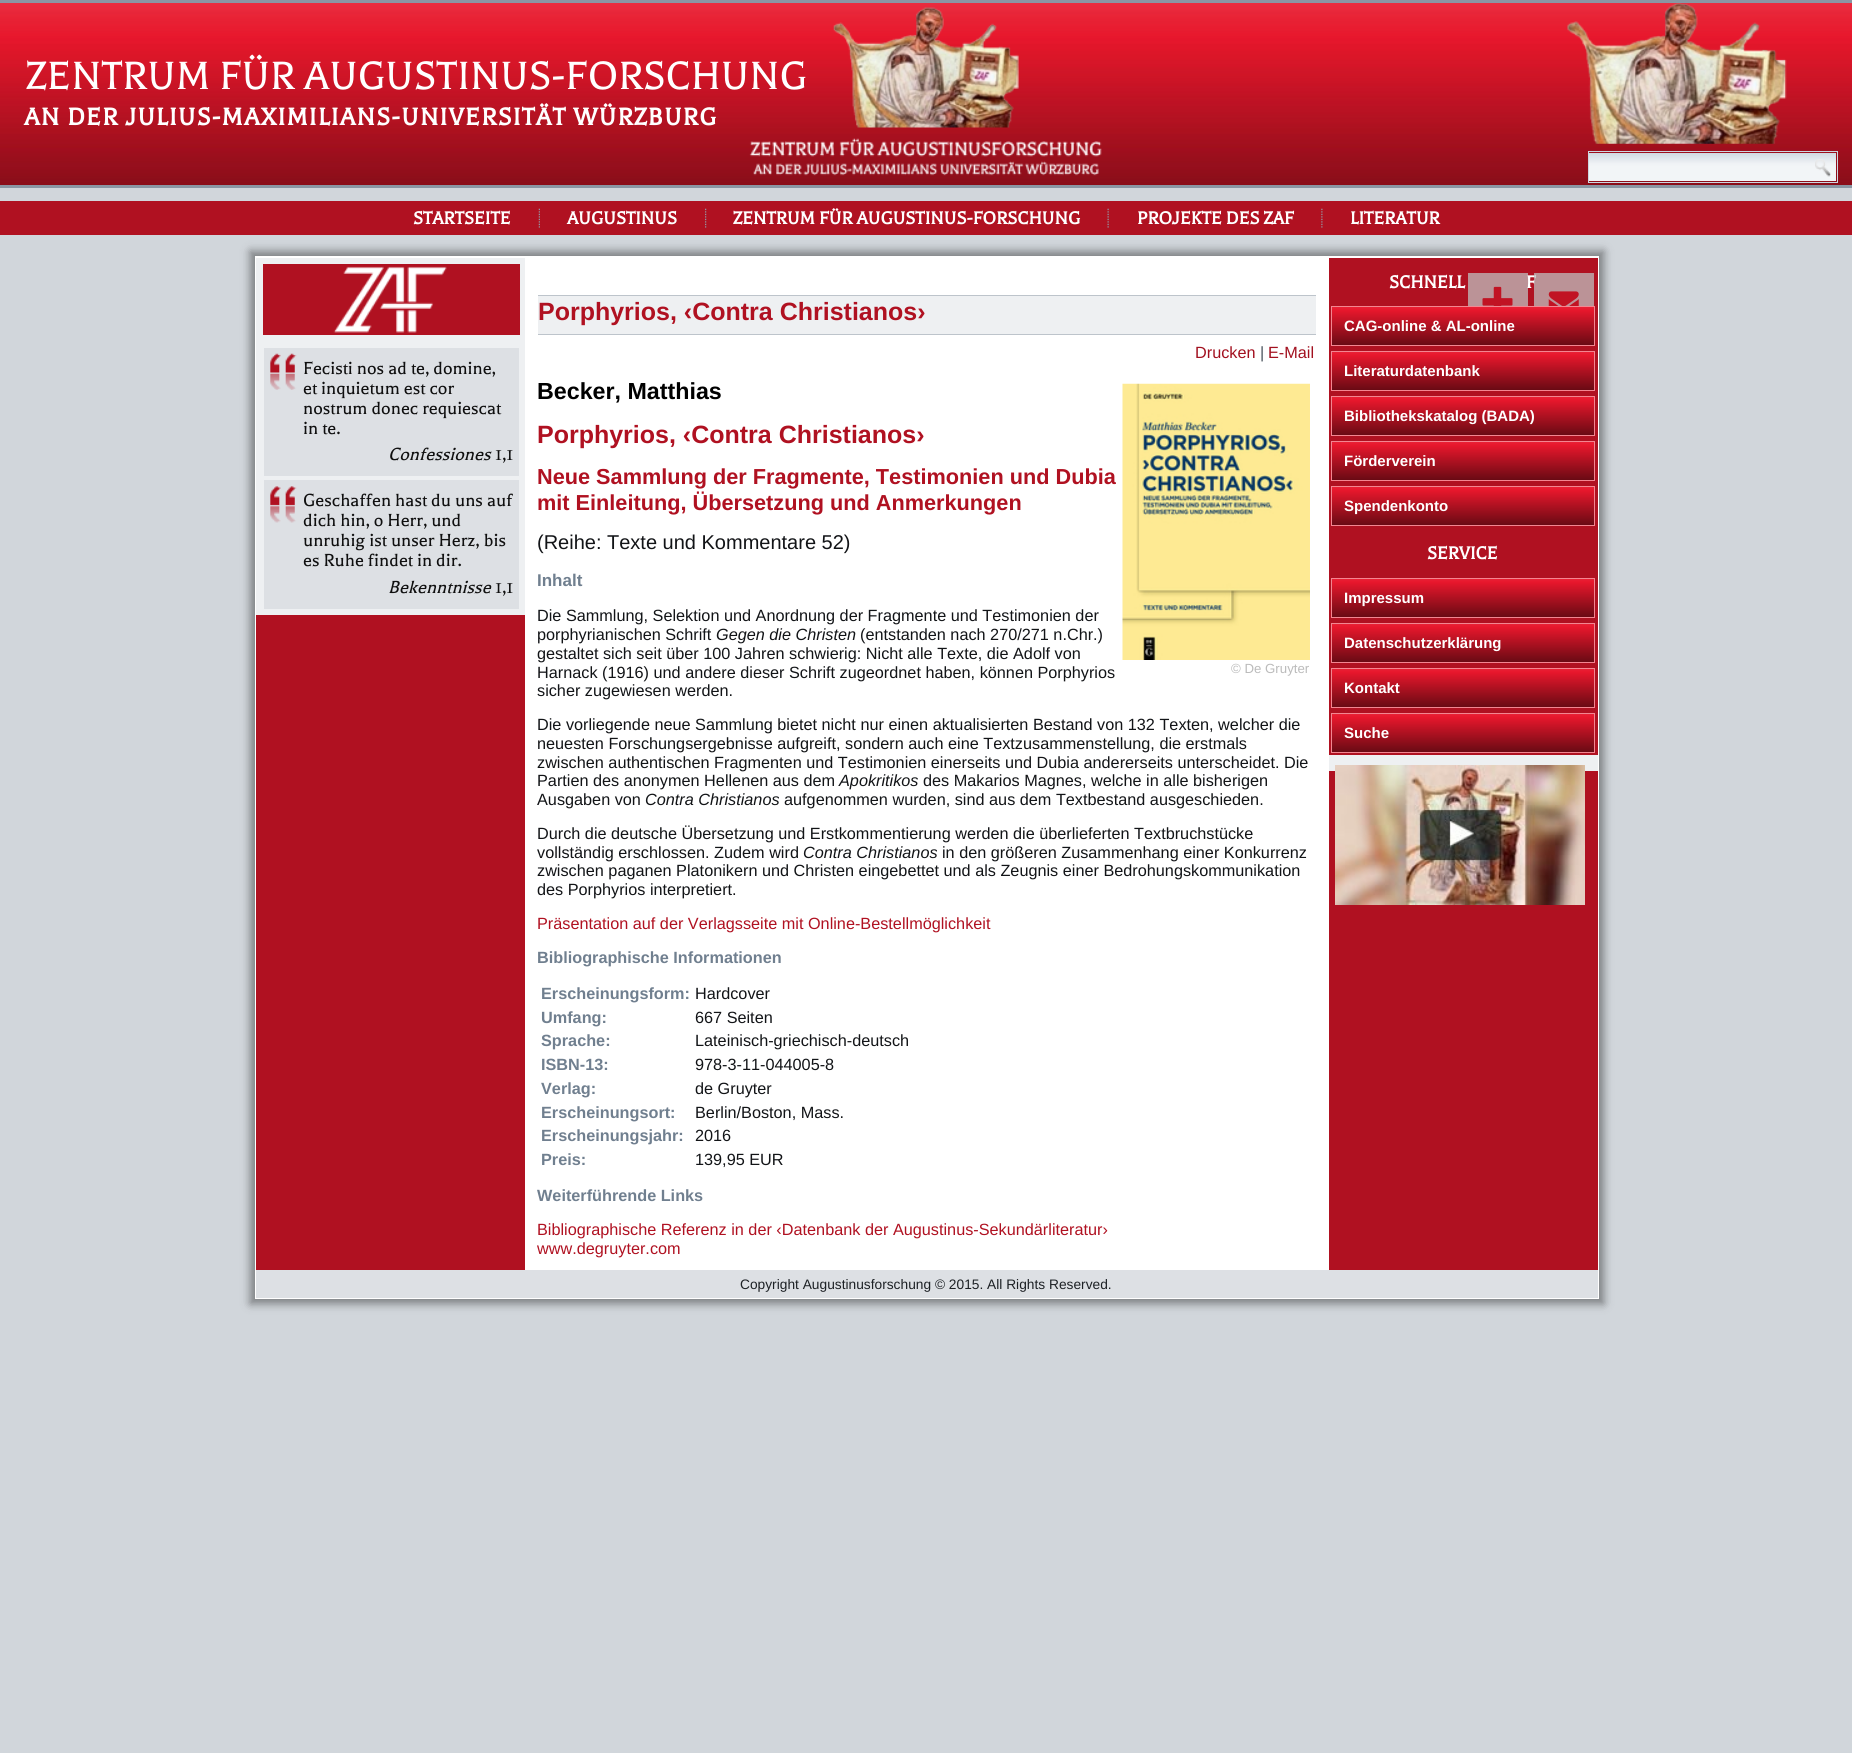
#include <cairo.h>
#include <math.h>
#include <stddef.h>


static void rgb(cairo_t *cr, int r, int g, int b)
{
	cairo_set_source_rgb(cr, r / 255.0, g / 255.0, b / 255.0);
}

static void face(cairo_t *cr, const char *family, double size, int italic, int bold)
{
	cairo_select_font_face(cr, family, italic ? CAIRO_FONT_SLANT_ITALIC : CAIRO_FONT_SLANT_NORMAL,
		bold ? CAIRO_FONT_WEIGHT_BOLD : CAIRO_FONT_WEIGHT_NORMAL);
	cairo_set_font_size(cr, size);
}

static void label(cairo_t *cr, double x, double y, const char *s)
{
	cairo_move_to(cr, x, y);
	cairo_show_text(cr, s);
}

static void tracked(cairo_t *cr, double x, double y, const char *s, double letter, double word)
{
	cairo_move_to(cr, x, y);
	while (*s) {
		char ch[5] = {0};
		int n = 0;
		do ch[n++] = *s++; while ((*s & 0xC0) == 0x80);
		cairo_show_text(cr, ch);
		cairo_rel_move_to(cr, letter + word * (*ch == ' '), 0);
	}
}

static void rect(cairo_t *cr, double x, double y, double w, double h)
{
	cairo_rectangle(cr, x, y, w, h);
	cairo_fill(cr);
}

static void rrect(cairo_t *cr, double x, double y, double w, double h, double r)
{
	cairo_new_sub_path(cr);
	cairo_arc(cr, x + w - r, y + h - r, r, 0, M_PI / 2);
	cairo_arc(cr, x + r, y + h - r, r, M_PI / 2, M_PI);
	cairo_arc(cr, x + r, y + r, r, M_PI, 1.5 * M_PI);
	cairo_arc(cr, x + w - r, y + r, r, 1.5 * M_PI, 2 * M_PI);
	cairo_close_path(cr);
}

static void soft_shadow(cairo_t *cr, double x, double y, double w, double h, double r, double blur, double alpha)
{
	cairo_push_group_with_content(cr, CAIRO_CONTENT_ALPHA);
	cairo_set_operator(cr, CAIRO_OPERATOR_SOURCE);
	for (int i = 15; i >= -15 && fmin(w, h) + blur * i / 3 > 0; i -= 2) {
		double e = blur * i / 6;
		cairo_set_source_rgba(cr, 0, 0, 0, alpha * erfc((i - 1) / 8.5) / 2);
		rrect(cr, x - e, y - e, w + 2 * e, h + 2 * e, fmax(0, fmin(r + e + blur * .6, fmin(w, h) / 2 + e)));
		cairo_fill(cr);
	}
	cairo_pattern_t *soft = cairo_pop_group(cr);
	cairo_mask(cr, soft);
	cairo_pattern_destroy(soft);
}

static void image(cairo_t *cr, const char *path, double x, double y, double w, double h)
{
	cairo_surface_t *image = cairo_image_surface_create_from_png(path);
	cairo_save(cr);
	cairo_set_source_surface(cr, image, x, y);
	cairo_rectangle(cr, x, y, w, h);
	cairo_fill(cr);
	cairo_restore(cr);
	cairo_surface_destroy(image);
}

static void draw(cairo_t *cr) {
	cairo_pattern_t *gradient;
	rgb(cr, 209, 214, 219);
	cairo_paint(cr);
	image(cr, "image0.png", 0, 3, 1852, 182);
	rgb(cr, 138, 150, 163);
	rect(cr, 0, 0, 1852, 3);
	rect(cr, 0, 185, 1852, 3);
	image(cr, "image1.png", 749, 7, 353, 169);
	face(cr, "Balthazar", 45, 0, 0);
	rgb(cr, 255, 255, 255);
	label(cr, 26, 89, "ZENTRUM FÜR AUGUSTINUS-FORSCHUNG");
	image(cr, "image2.png", 1567, 3, 220, 141);
	face(cr, "Balthazar", 27.5, 0, 1);
	tracked(cr, 24, 125, "AN DER JULIUS-MAXIMILIANS-UNIVERSITÄT WÜRZBURG", 1.25, 0);
	gradient = cairo_pattern_create_linear(1713, 152, 1713, 181);
	cairo_pattern_add_color_stop_rgba(gradient, 0, 0.8, 0.839, 0.878, 1);
	cairo_pattern_add_color_stop_rgba(gradient, 0.4, 0.937, 0.949, 0.961, 1);
	cairo_pattern_add_color_stop_rgba(gradient, 0.5, 0.949, 0.961, 0.969, 1);
	cairo_pattern_add_color_stop_rgba(gradient, 1, 0.949, 0.961, 0.969, 1);
	cairo_set_source(cr, gradient);
	cairo_pattern_destroy(gradient);
	rect(cr, 1589, 153, 247, 28);
	cairo_rectangle(cr, 1588.5, 151.5, 249, 31);
	rgb(cr, 204, 214, 224);
	cairo_set_line_width(cr, 1);
	cairo_stroke(cr);
	image(cr, "image3.png", 1815, 159, 16, 18);
	rgb(cr, 176, 17, 33);
	rect(cr, 0, 201, 1852, 34);
	face(cr, "Balthazar", 20, 0, 1);
	rgb(cr, 255, 255, 255);
	label(cr, 413, 224, "STARTSEITE");
	image(cr, "image4.png", 538, 208, 2, 20);
	label(cr, 567, 224, "AUGUSTINUS");
	image(cr, "image5.png", 705, 208, 2, 20);
	label(cr, 733, 224, "ZENTRUM FÜR AUGUSTINUS-FORSCHUNG");
	image(cr, "image6.png", 1107, 208, 2, 20);
	label(cr, 1137, 224, "PROJEKTE DES ZAF");
	image(cr, "image7.png", 1321, 208, 2, 20);
	label(cr, 1350, 224, "LITERATUR");
	rgb(cr, 0, 0, 0);
	soft_shadow(cr, 250, 251, 1354, 1053, 0, 4.5, 0.4);
	rgb(cr, 255, 255, 255);
	rect(cr, 255, 256, 1344, 1043);
	rgb(cr, 176, 17, 33);
	rect(cr, 256, 615, 269, 655);
	rgb(cr, 238, 240, 242);
	rect(cr, 256, 258, 269, 357);
	rgb(cr, 176, 17, 33);
	rect(cr, 263, 264, 257, 71);
	image(cr, "image8.png", 333, 266, 114, 67);
	rgb(cr, 221, 224, 228);
	rect(cr, 264, 348, 255, 128);
	image(cr, "image9.png", 270, 353, 27, 37);
	face(cr, "Balthazar", 20, 0, 0);
	rgb(cr, 15, 15, 15);
	label(cr, 303, 374, "Fecisti nos ad te, domine,");
	label(cr, 303, 394, "et inquietum est cor");
	label(cr, 303, 414, "nostrum donec requiescat");
	label(cr, 303, 434, "in te.");
	face(cr, "Balthazar", 20, 1, 0);
	label(cr, 388, 460, "Confessiones");
	face(cr, "Balthazar", 20, 0, 0);
	label(cr, 495, 460, "1,1");
	rgb(cr, 221, 224, 228);
	rect(cr, 264, 480, 255, 129);
	image(cr, "image10.png", 270, 486, 27, 37);
	rgb(cr, 15, 15, 15);
	label(cr, 303, 506, "Geschaffen hast du uns auf");
	label(cr, 303, 526, "dich hin, o Herr, und");
	label(cr, 303, 546, "unruhig ist unser Herz, bis");
	label(cr, 303, 566, "es Ruhe findet in dir.");
	face(cr, "Balthazar", 20, 1, 0);
	label(cr, 388, 593, "Bekenntnisse");
	face(cr, "Balthazar", 20, 0, 0);
	label(cr, 495, 593, "1,1");
	rgb(cr, 176, 17, 33);
	rect(cr, 1329, 258, 269, 1012);
	face(cr, "Balthazar", 20, 0, 1);
	rgb(cr, 255, 255, 255);
	label(cr, 1526, 288, "F");
	cairo_set_source_rgba(cr, 0.749, 0.749, 0.749, 0.75);
	rect(cr, 1468, 273, 60, 33);
	image(cr, "image11.png", 1482, 286, 31, 20);
	rect(cr, 1534, 273, 60, 33);
	image(cr, "image12.png", 1548, 291, 31, 15);
	rgb(cr, 238, 240, 242);
	rect(cr, 538, 296, 778, 38);
	rgb(cr, 189, 196, 203);
	rect(cr, 538, 295, 778, 1);
	rect(cr, 538, 334, 778, 1);
	face(cr, "Liberation Sans", 25, 0, 1);
	rgb(cr, 176, 17, 33);
	label(cr, 538, 320, "Porphyrios, ‹Contra Christianos›");
	face(cr, "Liberation Sans", 16.25, 0, 0);
	rgb(cr, 162, 16, 31);
	label(cr, 1195, 358, "Drucken");
	rgb(cr, 74, 84, 94);
	label(cr, 1260, 358, "|");
	rgb(cr, 162, 16, 31);
	label(cr, 1268, 358, "E-Mail");
	face(cr, "Liberation Sans", 23.25, 0, 1);
	rgb(cr, 0, 0, 0);
	label(cr, 537, 399, "Becker, Matthias");
	face(cr, "Liberation Sans", 25, 0, 1);
	rgb(cr, 176, 17, 33);
	label(cr, 537, 443, "Porphyrios, ‹Contra Christianos›");
	face(cr, "Liberation Sans", 21.7, 0, 1);
	label(cr, 537, 484, "Neue Sammlung der Fragmente, Testimonien und Dubia");
	label(cr, 537, 510, "mit Einleitung, Übersetzung und Anmerkungen");
	face(cr, "Liberation Sans", 20, 0, 0);
	rgb(cr, 18, 20, 23);
	label(cr, 537, 549, "(Reihe: Texte und Kommentare 52)");
	face(cr, "Liberation Sans", 17, 0, 1);
	rgb(cr, 112, 127, 143);
	label(cr, 537, 586, "Inhalt");
	face(cr, "Liberation Sans", 16.25, 0, 0);
	rgb(cr, 18, 20, 23);
	label(cr, 537, 621, "Die Sammlung, Selektion und Anordnung der Fragmente und Testimonien der");
	label(cr, 537, 640, "porphyrianischen Schrift");
	face(cr, "Liberation Sans", 16.25, 1, 0);
	label(cr, 716, 640, "Gegen die Christen");
	face(cr, "Liberation Sans", 16.25, 0, 0);
	label(cr, 860, 640, "(entstanden nach 270/271 n.Chr.)");
	label(cr, 537, 659, "gestaltet sich seit über 100 Jahren schwierig: Nicht alle Texte, die Adolf von");
	label(cr, 537, 678, "Harnack (1916) und andere dieser Schrift zugeordnet haben, können Porphyrios");
	label(cr, 537, 696, "sicher zugewiesen werden.");
	label(cr, 537, 730, "Die vorliegende neue Sammlung bietet nicht nur einen aktualisierten Bestand von 132 Texten, welcher die");
	label(cr, 537, 749, "neuesten Forschungsergebnisse aufgreift, sondern auch eine Textzusammenstellung, die erstmals");
	label(cr, 537, 768, "zwischen authentischen Fragmenten und Testimonien einerseits und Dubia andererseits unterscheidet. Die");
	label(cr, 537, 786, "Partien des anonymen Hellenen aus dem");
	face(cr, "Liberation Sans", 16.25, 1, 0);
	label(cr, 839, 786, "Apokritikos");
	face(cr, "Liberation Sans", 16.25, 0, 0);
	label(cr, 923, 786, "des Makarios Magnes, welche in alle bisherigen");
	label(cr, 537, 805, "Ausgaben von");
	face(cr, "Liberation Sans", 16.25, 1, 0);
	label(cr, 645, 805, "Contra Christianos");
	face(cr, "Liberation Sans", 16.25, 0, 0);
	label(cr, 784, 805, "aufgenommen wurden, sind aus dem Textbestand ausgeschieden.");
	label(cr, 537, 839, "Durch die deutsche Übersetzung und Erstkommentierung werden die überlieferten Textbruchstücke");
	label(cr, 537, 858, "vollständig erschlossen. Zudem wird");
	face(cr, "Liberation Sans", 16.25, 1, 0);
	label(cr, 803, 858, "Contra Christianos");
	face(cr, "Liberation Sans", 16.25, 0, 0);
	label(cr, 942, 858, "in den größeren Zusammenhang einer Konkurrenz");
	label(cr, 537, 876, "zwischen paganen Platonikern und Christen eingebettet und als Zeugnis einer Bedrohungskommunikation");
	label(cr, 537, 895, "des Porphyrios interpretiert.");
	rgb(cr, 176, 17, 33);
	label(cr, 537, 929, "Präsentation auf der Verlagsseite mit Online-Bestellmöglichkeit");
	face(cr, "Liberation Sans", 16.25, 0, 1);
	rgb(cr, 112, 127, 143);
	label(cr, 537, 963, "Bibliographische Informationen");
	label(cr, 541, 999, "Erscheinungsform:");
	face(cr, "Liberation Sans", 16.25, 0, 0);
	rgb(cr, 18, 20, 23);
	label(cr, 695, 999, "Hardcover");
	face(cr, "Liberation Sans", 16.25, 0, 1);
	rgb(cr, 112, 127, 143);
	label(cr, 541, 1023, "Umfang:");
	face(cr, "Liberation Sans", 16.25, 0, 0);
	rgb(cr, 18, 20, 23);
	label(cr, 695, 1023, "667 Seiten");
	face(cr, "Liberation Sans", 16.25, 0, 1);
	rgb(cr, 112, 127, 143);
	label(cr, 541, 1046, "Sprache:");
	face(cr, "Liberation Sans", 16.25, 0, 0);
	rgb(cr, 18, 20, 23);
	label(cr, 695, 1046, "Lateinisch-griechisch-deutsch");
	face(cr, "Liberation Sans", 16.25, 0, 1);
	rgb(cr, 112, 127, 143);
	label(cr, 541, 1070, "ISBN-13:");
	face(cr, "Liberation Sans", 16.25, 0, 0);
	rgb(cr, 18, 20, 23);
	label(cr, 695, 1070, "978-3-11-044005-8");
	face(cr, "Liberation Sans", 16.25, 0, 1);
	rgb(cr, 112, 127, 143);
	label(cr, 541, 1094, "Verlag:");
	face(cr, "Liberation Sans", 16.25, 0, 0);
	rgb(cr, 18, 20, 23);
	label(cr, 695, 1094, "de Gruyter");
	face(cr, "Liberation Sans", 16.25, 0, 1);
	rgb(cr, 112, 127, 143);
	label(cr, 541, 1118, "Erscheinungsort:");
	face(cr, "Liberation Sans", 16.25, 0, 0);
	rgb(cr, 18, 20, 23);
	label(cr, 695, 1118, "Berlin/Boston, Mass.");
	face(cr, "Liberation Sans", 16.25, 0, 1);
	rgb(cr, 112, 127, 143);
	label(cr, 541, 1141, "Erscheinungsjahr:");
	face(cr, "Liberation Sans", 16.25, 0, 0);
	rgb(cr, 18, 20, 23);
	label(cr, 695, 1141, "2016");
	face(cr, "Liberation Sans", 16.25, 0, 1);
	rgb(cr, 112, 127, 143);
	label(cr, 541, 1165, "Preis:");
	face(cr, "Liberation Sans", 16.25, 0, 0);
	rgb(cr, 18, 20, 23);
	label(cr, 695, 1165, "139,95 EUR");
	face(cr, "Liberation Sans", 16.25, 0, 1);
	rgb(cr, 112, 127, 143);
	label(cr, 537, 1201, "Weiterführende Links");
	face(cr, "Liberation Sans", 16.25, 0, 0);
	rgb(cr, 176, 17, 33);
	label(cr, 537, 1235, "Bibliographische Referenz in der ‹Datenbank der Augustinus-Sekundärliteratur›");
	label(cr, 537, 1254, "www.degruyter.com");
	image(cr, "image13.png", 1122, 383, 188, 277);
	face(cr, "Liberation Sans", 13.25, 0, 0);
	rgb(cr, 187, 187, 187);
	label(cr, 1231, 673, "© De Gruyter");
	face(cr, "Balthazar", 20, 0, 1);
	rgb(cr, 255, 255, 255);
	label(cr, 1389, 288, "SCHNELL");
	gradient = cairo_pattern_create_linear(1463, 306, 1463, 346);
	cairo_pattern_add_color_stop_rgba(gradient, 0, 0.914, 0.145, 0.224, 1);
	cairo_pattern_add_color_stop_rgba(gradient, 0.1, 0.91, 0.09, 0.173, 1);
	cairo_pattern_add_color_stop_rgba(gradient, 1, 0.4, 0.039, 0.075, 1);
	cairo_set_source(cr, gradient);
	cairo_pattern_destroy(gradient);
	rect(cr, 1332, 307, 262, 38);
	cairo_rectangle(cr, 1331.5, 306.5, 263, 39);
	rgb(cr, 243, 134, 145);
	cairo_stroke(cr);
	face(cr, "Liberation Sans", 15, 0, 1);
	rgb(cr, 255, 255, 255);
	label(cr, 1344, 331, "CAG-online & AL-online");
	gradient = cairo_pattern_create_linear(1463, 351, 1463, 391);
	cairo_pattern_add_color_stop_rgba(gradient, 0, 0.914, 0.145, 0.224, 1);
	cairo_pattern_add_color_stop_rgba(gradient, 0.1, 0.91, 0.09, 0.173, 1);
	cairo_pattern_add_color_stop_rgba(gradient, 1, 0.4, 0.039, 0.075, 1);
	cairo_set_source(cr, gradient);
	cairo_pattern_destroy(gradient);
	rect(cr, 1332, 352, 262, 38);
	cairo_rectangle(cr, 1331.5, 351.5, 263, 39);
	rgb(cr, 243, 134, 145);
	cairo_stroke(cr);
	rgb(cr, 255, 255, 255);
	label(cr, 1344, 376, "Literaturdatenbank");
	gradient = cairo_pattern_create_linear(1463, 396, 1463, 436);
	cairo_pattern_add_color_stop_rgba(gradient, 0, 0.914, 0.145, 0.224, 1);
	cairo_pattern_add_color_stop_rgba(gradient, 0.1, 0.91, 0.09, 0.173, 1);
	cairo_pattern_add_color_stop_rgba(gradient, 1, 0.4, 0.039, 0.075, 1);
	cairo_set_source(cr, gradient);
	cairo_pattern_destroy(gradient);
	rect(cr, 1332, 397, 262, 38);
	cairo_rectangle(cr, 1331.5, 396.5, 263, 39);
	rgb(cr, 243, 134, 145);
	cairo_stroke(cr);
	rgb(cr, 255, 255, 255);
	label(cr, 1344, 421, "Bibliothekskatalog (BADA)");
	gradient = cairo_pattern_create_linear(1463, 441, 1463, 481);
	cairo_pattern_add_color_stop_rgba(gradient, 0, 0.914, 0.145, 0.224, 1);
	cairo_pattern_add_color_stop_rgba(gradient, 0.1, 0.91, 0.09, 0.173, 1);
	cairo_pattern_add_color_stop_rgba(gradient, 1, 0.4, 0.039, 0.075, 1);
	cairo_set_source(cr, gradient);
	cairo_pattern_destroy(gradient);
	rect(cr, 1332, 442, 262, 38);
	cairo_rectangle(cr, 1331.5, 441.5, 263, 39);
	rgb(cr, 243, 134, 145);
	cairo_stroke(cr);
	rgb(cr, 255, 255, 255);
	label(cr, 1344, 466, "Förderverein");
	gradient = cairo_pattern_create_linear(1463, 486, 1463, 526);
	cairo_pattern_add_color_stop_rgba(gradient, 0, 0.914, 0.145, 0.224, 1);
	cairo_pattern_add_color_stop_rgba(gradient, 0.1, 0.91, 0.09, 0.173, 1);
	cairo_pattern_add_color_stop_rgba(gradient, 1, 0.4, 0.039, 0.075, 1);
	cairo_set_source(cr, gradient);
	cairo_pattern_destroy(gradient);
	rect(cr, 1332, 487, 262, 38);
	cairo_rectangle(cr, 1331.5, 486.5, 263, 39);
	rgb(cr, 243, 134, 145);
	cairo_stroke(cr);
	rgb(cr, 255, 255, 255);
	label(cr, 1344, 511, "Spendenkonto");
	face(cr, "Balthazar", 20, 0, 1);
	label(cr, 1427, 559, "SERVICE");
	gradient = cairo_pattern_create_linear(1463, 578, 1463, 618);
	cairo_pattern_add_color_stop_rgba(gradient, 0, 0.914, 0.145, 0.224, 1);
	cairo_pattern_add_color_stop_rgba(gradient, 0.1, 0.91, 0.09, 0.173, 1);
	cairo_pattern_add_color_stop_rgba(gradient, 1, 0.4, 0.039, 0.075, 1);
	cairo_set_source(cr, gradient);
	cairo_pattern_destroy(gradient);
	rect(cr, 1332, 579, 262, 38);
	cairo_rectangle(cr, 1331.5, 578.5, 263, 39);
	rgb(cr, 243, 134, 145);
	cairo_stroke(cr);
	face(cr, "Liberation Sans", 15, 0, 1);
	rgb(cr, 255, 255, 255);
	label(cr, 1344, 603, "Impressum");
	gradient = cairo_pattern_create_linear(1463, 623, 1463, 663);
	cairo_pattern_add_color_stop_rgba(gradient, 0, 0.914, 0.145, 0.224, 1);
	cairo_pattern_add_color_stop_rgba(gradient, 0.1, 0.91, 0.09, 0.173, 1);
	cairo_pattern_add_color_stop_rgba(gradient, 1, 0.4, 0.039, 0.075, 1);
	cairo_set_source(cr, gradient);
	cairo_pattern_destroy(gradient);
	rect(cr, 1332, 624, 262, 38);
	cairo_rectangle(cr, 1331.5, 623.5, 263, 39);
	rgb(cr, 243, 134, 145);
	cairo_stroke(cr);
	rgb(cr, 255, 255, 255);
	label(cr, 1344, 648, "Datenschutzerklärung");
	gradient = cairo_pattern_create_linear(1463, 668, 1463, 708);
	cairo_pattern_add_color_stop_rgba(gradient, 0, 0.914, 0.145, 0.224, 1);
	cairo_pattern_add_color_stop_rgba(gradient, 0.1, 0.91, 0.09, 0.173, 1);
	cairo_pattern_add_color_stop_rgba(gradient, 1, 0.4, 0.039, 0.075, 1);
	cairo_set_source(cr, gradient);
	cairo_pattern_destroy(gradient);
	rect(cr, 1332, 669, 262, 38);
	cairo_rectangle(cr, 1331.5, 668.5, 263, 39);
	rgb(cr, 243, 134, 145);
	cairo_stroke(cr);
	rgb(cr, 255, 255, 255);
	label(cr, 1344, 693, "Kontakt");
	gradient = cairo_pattern_create_linear(1463, 713, 1463, 753);
	cairo_pattern_add_color_stop_rgba(gradient, 0, 0.914, 0.145, 0.224, 1);
	cairo_pattern_add_color_stop_rgba(gradient, 0.1, 0.91, 0.09, 0.173, 1);
	cairo_pattern_add_color_stop_rgba(gradient, 1, 0.4, 0.039, 0.075, 1);
	cairo_set_source(cr, gradient);
	cairo_pattern_destroy(gradient);
	rect(cr, 1332, 714, 262, 38);
	cairo_rectangle(cr, 1331.5, 713.5, 263, 39);
	rgb(cr, 243, 134, 145);
	cairo_stroke(cr);
	rgb(cr, 255, 255, 255);
	label(cr, 1344, 738, "Suche");
	rgb(cr, 238, 240, 242);
	rect(cr, 1329, 755, 269, 16);
	image(cr, "image14.png", 1335, 765, 250, 140);
	rgb(cr, 221, 224, 228);
	rect(cr, 256, 1270, 1342, 28);
	face(cr, "Liberation Sans", 13.75, 0, 0);
	rgb(cr, 29, 33, 37);
	label(cr, 740, 1289, "Copyright Augustinusforschung © 2015. All Rights Reserved.");
}

int main(void) {
	cairo_surface_t *surface = cairo_image_surface_create(CAIRO_FORMAT_RGB24, 1852, 1753);
	cairo_t *cr = cairo_create(surface);
	cairo_font_options_t *options = cairo_font_options_create();
	cairo_font_options_set_hint_metrics(options, CAIRO_HINT_METRICS_OFF);
	cairo_font_options_set_hint_style(options, CAIRO_HINT_STYLE_NONE);
	cairo_set_font_options(cr, options);
	cairo_set_miter_limit(cr, 4);
	draw(cr);
	cairo_surface_write_to_png(surface, "render.png");
	cairo_font_options_destroy(options);
	cairo_destroy(cr);
	cairo_surface_destroy(surface);
	return 0;
}
